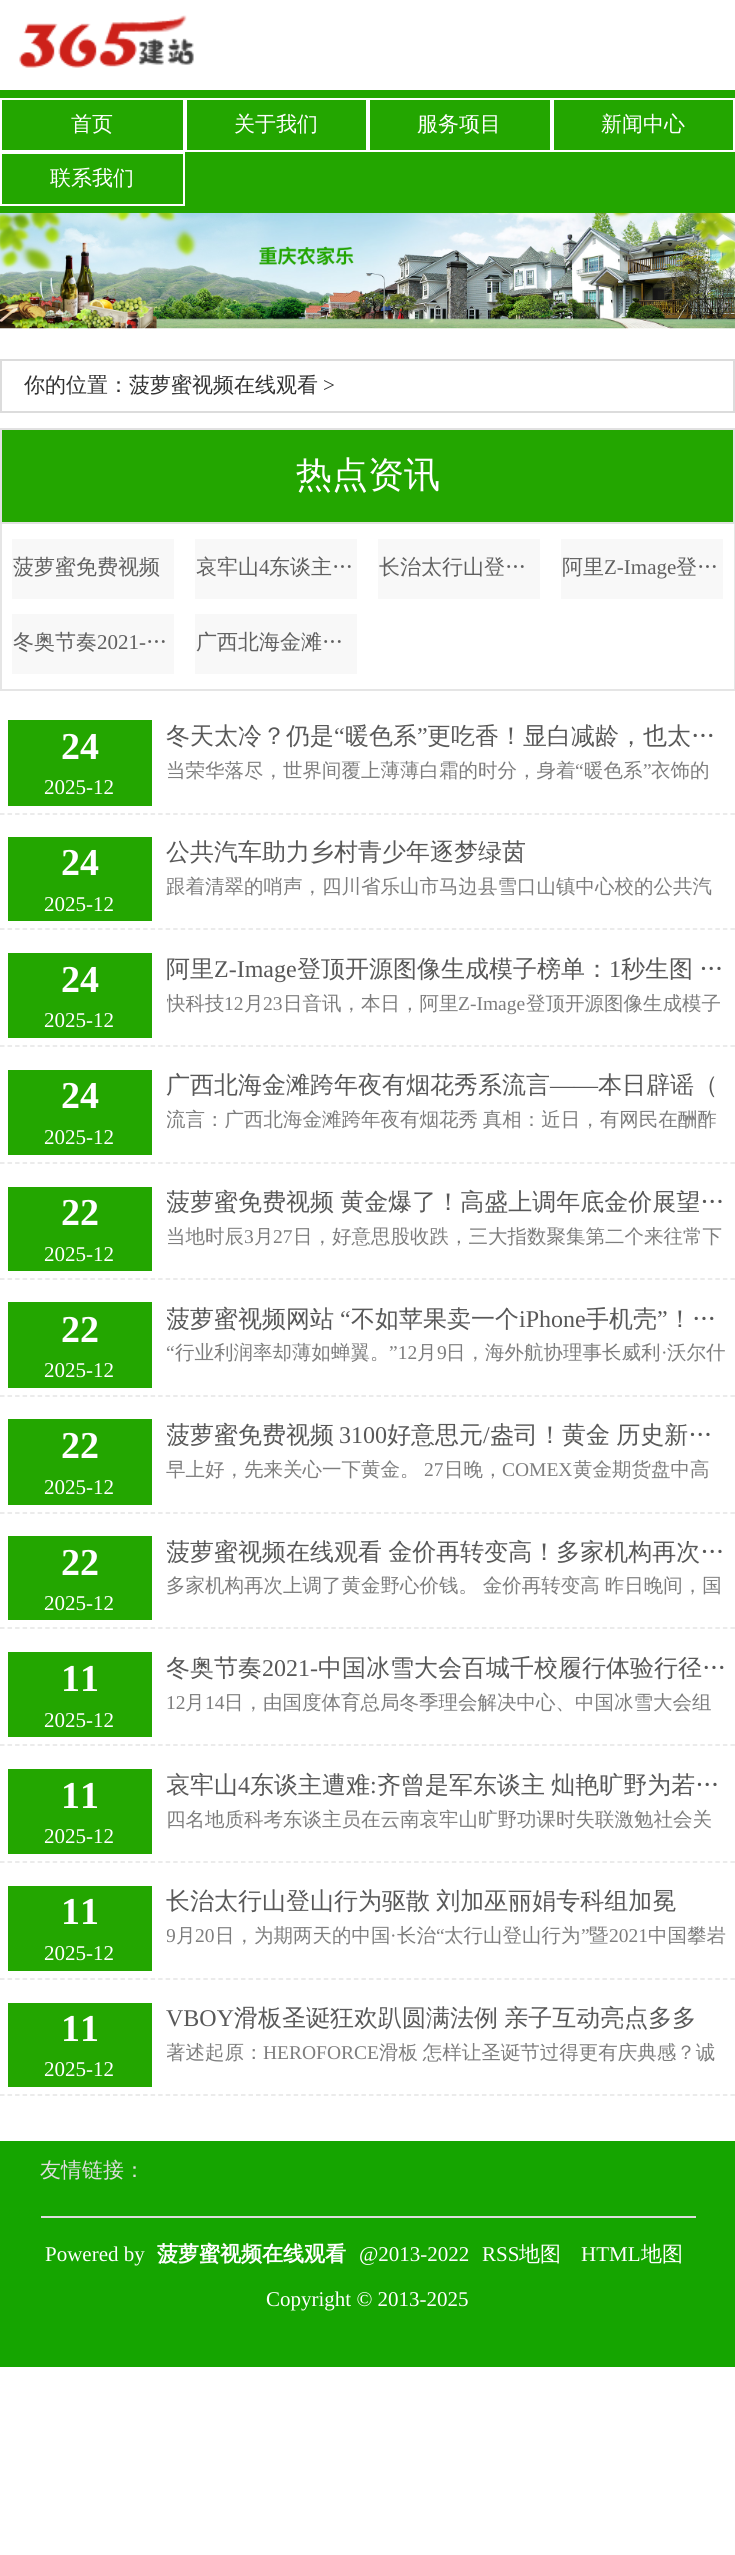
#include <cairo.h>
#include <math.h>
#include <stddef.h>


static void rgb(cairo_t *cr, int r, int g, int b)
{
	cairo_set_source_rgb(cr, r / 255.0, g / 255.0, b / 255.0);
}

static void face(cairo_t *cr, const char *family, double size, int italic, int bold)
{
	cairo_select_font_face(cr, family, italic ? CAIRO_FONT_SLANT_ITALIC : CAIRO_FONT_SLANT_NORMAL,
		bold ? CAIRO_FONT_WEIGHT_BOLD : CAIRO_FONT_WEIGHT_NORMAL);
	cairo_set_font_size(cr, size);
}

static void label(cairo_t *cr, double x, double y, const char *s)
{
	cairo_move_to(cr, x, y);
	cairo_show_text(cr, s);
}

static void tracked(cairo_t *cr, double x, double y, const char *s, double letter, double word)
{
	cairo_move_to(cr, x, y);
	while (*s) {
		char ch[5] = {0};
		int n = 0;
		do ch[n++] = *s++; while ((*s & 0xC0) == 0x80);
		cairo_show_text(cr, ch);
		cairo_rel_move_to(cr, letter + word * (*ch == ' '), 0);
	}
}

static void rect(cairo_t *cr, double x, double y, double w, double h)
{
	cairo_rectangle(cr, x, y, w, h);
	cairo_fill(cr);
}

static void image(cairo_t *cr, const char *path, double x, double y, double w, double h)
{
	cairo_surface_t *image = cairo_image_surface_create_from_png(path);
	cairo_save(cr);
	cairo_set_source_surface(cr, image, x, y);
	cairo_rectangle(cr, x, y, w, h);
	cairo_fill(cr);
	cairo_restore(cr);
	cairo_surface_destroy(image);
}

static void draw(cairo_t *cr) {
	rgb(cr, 255, 255, 255);
	cairo_paint(cr);
	image(cr, "image0.png", 19, 15, 175, 53);
	rgb(cr, 35, 166, 0);
	rect(cr, 0, 90, 735, 123);
	cairo_rectangle(cr, 1, 99, 183, 52);
	rgb(cr, 255, 255, 255);
	cairo_stroke(cr);
	face(cr, "WenQuanYi Zen Hei Medium", 21, 0, 0);
	label(cr, 71, 131, "首页");
	cairo_rectangle(cr, 186, 99, 181, 52);
	cairo_stroke(cr);
	label(cr, 234, 131, "关于我们");
	cairo_rectangle(cr, 369, 99, 182, 52);
	cairo_stroke(cr);
	label(cr, 417, 131, "服务项目");
	cairo_rectangle(cr, 553, 99, 181, 52);
	cairo_stroke(cr);
	label(cr, 601, 131, "新闻中心");
	cairo_rectangle(cr, 1, 153, 183, 52);
	cairo_stroke(cr);
	label(cr, 50, 185, "联系我们");
	image(cr, "image1.png", 0, 213, 735, 116);
	cairo_rectangle(cr, 1, 360, 733, 52);
	rgb(cr, 220, 220, 220);
	cairo_stroke(cr);
	rgb(cr, 49, 49, 49);
	label(cr, 24, 392, "你的位置：菠萝蜜视频在线观看");
	face(cr, "Liberation Serif", 21, 0, 0);
	label(cr, 323, 392, ">");
	rgb(cr, 35, 166, 0);
	cairo_rectangle(cr, 1, 429, 733, 94);
	cairo_fill_preserve(cr);
	rgb(cr, 225, 225, 225);
	cairo_stroke(cr);
	face(cr, "WenQuanYi Zen Hei Medium", 36, 0, 0);
	rgb(cr, 255, 255, 255);
	label(cr, 296, 487, "热点资讯");
	rgb(cr, 229, 229, 229);
	rect(cr, 734, 524, 1, 166);
	rect(cr, 0, 689, 735, 2);
	rect(cr, 0, 524, 2, 166);
	rgb(cr, 248, 248, 248);
	rect(cr, 12, 539, 162, 60);
	face(cr, "WenQuanYi Zen Hei Medium", 21, 0, 0);
	rgb(cr, 96, 96, 96);
	label(cr, 13, 574, "菠萝蜜免费视频");
	rgb(cr, 248, 248, 248);
	rect(cr, 195, 539, 162, 60);
	rgb(cr, 96, 96, 96);
	label(cr, 196, 574, "哀牢山");
	face(cr, "Liberation Serif", 21, 0, 0);
	label(cr, 259, 574, "4");
	face(cr, "WenQuanYi Zen Hei Medium", 21, 0, 0);
	label(cr, 269, 574, "东谈主…");
	rgb(cr, 248, 248, 248);
	rect(cr, 378, 539, 162, 60);
	rgb(cr, 96, 96, 96);
	tracked(cr, 379, 574, "长治太行山登…", 0, -1);
	rgb(cr, 248, 248, 248);
	rect(cr, 561, 539, 162, 60);
	rgb(cr, 96, 96, 96);
	label(cr, 562, 574, "阿里");
	face(cr, "Liberation Serif", 21, 0, 0);
	label(cr, 604, 574, "Z-Image");
	face(cr, "WenQuanYi Zen Hei Medium", 21, 0, 0);
	label(cr, 676, 574, "登…");
	rgb(cr, 248, 248, 248);
	rect(cr, 12, 614, 162, 60);
	rgb(cr, 96, 96, 96);
	label(cr, 13, 649, "冬奥节奏");
	face(cr, "Liberation Serif", 21, 0, 0);
	label(cr, 97, 649, "2021-");
	face(cr, "WenQuanYi Zen Hei Medium", 21, 0, 0);
	label(cr, 146, 649, "…");
	rgb(cr, 248, 248, 248);
	rect(cr, 195, 614, 162, 60);
	rgb(cr, 96, 96, 96);
	label(cr, 196, 649, "广西北海金滩…");
	cairo_new_path(cr);
	cairo_move_to(cr, 0, 814);
	cairo_line_to(cr, 735, 814);
	rgb(cr, 229, 229, 229);
	cairo_set_line_width(cr, 1.5);
	cairo_set_dash(cr, (double[]){4.5, 3.03}, 2, 0);
	cairo_stroke(cr);
	rgb(cr, 35, 166, 0);
	rect(cr, 8, 720, 144, 86);
	face(cr, "Liberation Serif", 38, 0, 1);
	rgb(cr, 255, 255, 255);
	label(cr, 61, 759, "24");
	face(cr, "Liberation Serif", 21, 0, 0);
	label(cr, 44, 794, "2025-12");
	face(cr, "WenQuanYi Zen Hei Medium", 24, 0, 0);
	rgb(cr, 88, 88, 88);
	label(cr, 166, 744, "冬天太冷？仍是");
	face(cr, "Liberation Serif", 24, 0, 0);
	label(cr, 334, 744, "“");
	face(cr, "WenQuanYi Zen Hei Medium", 24, 0, 0);
	label(cr, 345, 744, "暖色系");
	face(cr, "Liberation Serif", 24, 0, 0);
	label(cr, 417, 744, "”");
	face(cr, "WenQuanYi Zen Hei Medium", 24, 0, 0);
	label(cr, 427, 744, "更吃香！显白减龄，也太…");
	face(cr, "WenQuanYi Zen Hei Medium", 19.5, 0, 0);
	rgb(cr, 125, 125, 125);
	label(cr, 166, 777, "当荣华落尽，世界间覆上薄薄白霜的时分，身着");
	face(cr, "Liberation Serif", 19.5, 0, 0);
	label(cr, 575, 777, "“");
	face(cr, "WenQuanYi Zen Hei Medium", 19.5, 0, 0);
	label(cr, 584, 777, "暖色系");
	face(cr, "Liberation Serif", 19.5, 0, 0);
	label(cr, 643, 777, "”");
	face(cr, "WenQuanYi Zen Hei Medium", 19.5, 0, 0);
	label(cr, 651, 777, "衣饰的");
	cairo_new_path(cr);
	cairo_move_to(cr, 0, 929);
	cairo_line_to(cr, 735, 929);
	rgb(cr, 229, 229, 229);
	cairo_stroke(cr);
	rgb(cr, 35, 166, 0);
	rect(cr, 8, 837, 144, 84);
	face(cr, "Liberation Serif", 38, 0, 1);
	rgb(cr, 255, 255, 255);
	label(cr, 61, 875, "24");
	face(cr, "Liberation Serif", 21, 0, 0);
	label(cr, 44, 911, "2025-12");
	face(cr, "WenQuanYi Zen Hei Medium", 24, 0, 0);
	rgb(cr, 88, 88, 88);
	label(cr, 166, 860, "公共汽车助力乡村青少年逐梦绿茵");
	face(cr, "WenQuanYi Zen Hei Medium", 19.5, 0, 0);
	rgb(cr, 125, 125, 125);
	label(cr, 166, 893, "跟着清翠的哨声，四川省乐山市马边县雪口山镇中心校的公共汽");
	cairo_new_path(cr);
	cairo_move_to(cr, 0, 1046);
	cairo_line_to(cr, 735, 1046);
	rgb(cr, 229, 229, 229);
	cairo_stroke(cr);
	rgb(cr, 35, 166, 0);
	rect(cr, 8, 953, 144, 85);
	face(cr, "Liberation Serif", 38, 0, 1);
	rgb(cr, 255, 255, 255);
	label(cr, 61, 992, "24");
	face(cr, "Liberation Serif", 21, 0, 0);
	label(cr, 44, 1027, "2025-12");
	face(cr, "WenQuanYi Zen Hei Medium", 24, 0, 0);
	rgb(cr, 88, 88, 88);
	label(cr, 166, 977, "阿里");
	face(cr, "Liberation Serif", 24, 0, 0);
	label(cr, 214, 977, "Z-Image");
	face(cr, "WenQuanYi Zen Hei Medium", 24, 0, 0);
	label(cr, 297, 977, "登顶开源图像生成模子榜单：");
	face(cr, "Liberation Serif", 24, 0, 0);
	label(cr, 609, 977, "1");
	face(cr, "WenQuanYi Zen Hei Medium", 24, 0, 0);
	tracked(cr, 621, 977, "秒生图 …", 0, -1);
	cairo_save(cr);
	cairo_rectangle(cr, 167, 987, 561, 30);
	cairo_clip(cr);
	face(cr, "WenQuanYi Zen Hei Medium", 19.5, 0, 0);
	rgb(cr, 125, 125, 125);
	label(cr, 166, 1010, "快科技");
	cairo_restore(cr);
	face(cr, "Liberation Serif", 19.5, 0, 0);
	rgb(cr, 125, 125, 125);
	label(cr, 224, 1010, "12");
	face(cr, "WenQuanYi Zen Hei Medium", 19.5, 0, 0);
	label(cr, 244, 1010, "月");
	face(cr, "Liberation Serif", 19.5, 0, 0);
	label(cr, 263, 1010, "23");
	face(cr, "WenQuanYi Zen Hei Medium", 19.5, 0, 0);
	label(cr, 283, 1010, "日音讯，本日，阿里");
	face(cr, "Liberation Serif", 19.5, 0, 0);
	label(cr, 458, 1010, "Z-Image");
	face(cr, "WenQuanYi Zen Hei Medium", 19.5, 0, 0);
	label(cr, 526, 1010, "登顶开源图像生成模子");
	cairo_new_path(cr);
	cairo_move_to(cr, 0, 1163);
	cairo_line_to(cr, 735, 1163);
	rgb(cr, 229, 229, 229);
	cairo_stroke(cr);
	rgb(cr, 35, 166, 0);
	rect(cr, 8, 1070, 144, 85);
	face(cr, "Liberation Serif", 38, 0, 1);
	rgb(cr, 255, 255, 255);
	label(cr, 61, 1108, "24");
	face(cr, "Liberation Serif", 21, 0, 0);
	label(cr, 44, 1144, "2025-12");
	face(cr, "WenQuanYi Zen Hei Medium", 24, 0, 0);
	rgb(cr, 88, 88, 88);
	label(cr, 166, 1093, "广西北海金滩跨年夜有烟花秀系流言");
	face(cr, "Liberation Serif", 24, 0, 0);
	label(cr, 550, 1093, "——");
	face(cr, "WenQuanYi Zen Hei Medium", 24, 0, 0);
	label(cr, 598, 1093, "本日辟谣（");
	cairo_save(cr);
	cairo_rectangle(cr, 167, 1104, 561, 30);
	cairo_clip(cr);
	face(cr, "WenQuanYi Zen Hei Medium", 19.5, 0, 0);
	rgb(cr, 125, 125, 125);
	tracked(cr, 166, 1126, "流言：广西北海金滩跨年夜有烟花秀 真相：近日，有网民在酬酢", 0, -1);
	cairo_restore(cr);
	cairo_new_path(cr);
	cairo_move_to(cr, 0, 1279);
	cairo_line_to(cr, 735, 1279);
	rgb(cr, 229, 229, 229);
	cairo_stroke(cr);
	rgb(cr, 35, 166, 0);
	rect(cr, 8, 1187, 144, 84);
	face(cr, "Liberation Serif", 38, 0, 1);
	rgb(cr, 255, 255, 255);
	label(cr, 61, 1225, "22");
	face(cr, "Liberation Serif", 21, 0, 0);
	label(cr, 44, 1261, "2025-12");
	cairo_save(cr);
	cairo_rectangle(cr, 167, 1187, 561, 34);
	cairo_clip(cr);
	face(cr, "WenQuanYi Zen Hei Medium", 24, 0, 0);
	rgb(cr, 88, 88, 88);
	tracked(cr, 166, 1210, "菠萝蜜免费视频 黄金爆了！高盛上调年底金价展望…", 0, -1);
	cairo_restore(cr);
	face(cr, "WenQuanYi Zen Hei Medium", 19.5, 0, 0);
	rgb(cr, 125, 125, 125);
	label(cr, 166, 1243, "当地时辰");
	face(cr, "Liberation Serif", 19.5, 0, 0);
	label(cr, 244, 1243, "3");
	face(cr, "WenQuanYi Zen Hei Medium", 19.5, 0, 0);
	label(cr, 254, 1243, "月");
	face(cr, "Liberation Serif", 19.5, 0, 0);
	label(cr, 273, 1243, "27");
	face(cr, "WenQuanYi Zen Hei Medium", 19.5, 0, 0);
	label(cr, 293, 1243, "日，好意思股收跌，三大指数聚集第二个来往常下");
	cairo_new_path(cr);
	cairo_move_to(cr, 0, 1396);
	cairo_line_to(cr, 735, 1396);
	rgb(cr, 229, 229, 229);
	cairo_stroke(cr);
	rgb(cr, 35, 166, 0);
	rect(cr, 8, 1302, 144, 86);
	face(cr, "Liberation Serif", 38, 0, 1);
	rgb(cr, 255, 255, 255);
	label(cr, 61, 1342, "22");
	face(cr, "Liberation Serif", 21, 0, 0);
	label(cr, 44, 1377, "2025-12");
	cairo_save(cr);
	cairo_rectangle(cr, 167, 1302, 561, 35);
	cairo_clip(cr);
	face(cr, "WenQuanYi Zen Hei Medium", 24, 0, 0);
	rgb(cr, 88, 88, 88);
	label(cr, 166, 1327, "菠萝蜜视频网站");
	cairo_restore(cr);
	face(cr, "Liberation Serif", 24, 0, 0);
	rgb(cr, 88, 88, 88);
	label(cr, 340, 1327, "“");
	face(cr, "WenQuanYi Zen Hei Medium", 24, 0, 0);
	label(cr, 351, 1327, "不如苹果卖一个");
	face(cr, "Liberation Serif", 24, 0, 0);
	label(cr, 519, 1327, "iPhone");
	face(cr, "WenQuanYi Zen Hei Medium", 24, 0, 0);
	label(cr, 585, 1327, "手机壳");
	face(cr, "Liberation Serif", 24, 0, 0);
	label(cr, 657, 1327, "”");
	face(cr, "WenQuanYi Zen Hei Medium", 24, 0, 0);
	label(cr, 668, 1327, "！…");
	face(cr, "Liberation Serif", 19.5, 0, 0);
	rgb(cr, 125, 125, 125);
	label(cr, 166, 1359, "“");
	face(cr, "WenQuanYi Zen Hei Medium", 19.5, 0, 0);
	label(cr, 175, 1359, "行业利润率却薄如蝉翼。");
	face(cr, "Liberation Serif", 19.5, 0, 0);
	label(cr, 389, 1359, "”12");
	face(cr, "WenQuanYi Zen Hei Medium", 19.5, 0, 0);
	label(cr, 417, 1359, "月");
	face(cr, "Liberation Serif", 19.5, 0, 0);
	label(cr, 437, 1359, "9");
	face(cr, "WenQuanYi Zen Hei Medium", 19.5, 0, 0);
	label(cr, 446, 1359, "日，海外航协理事长威利");
	face(cr, "Liberation Serif", 19.5, 0, 0);
	label(cr, 661, 1359, "·");
	face(cr, "WenQuanYi Zen Hei Medium", 19.5, 0, 0);
	label(cr, 667, 1359, "沃尔什");
	cairo_new_path(cr);
	cairo_move_to(cr, 0, 1513);
	cairo_line_to(cr, 735, 1513);
	rgb(cr, 229, 229, 229);
	cairo_stroke(cr);
	rgb(cr, 35, 166, 0);
	rect(cr, 8, 1419, 144, 86);
	face(cr, "Liberation Serif", 38, 0, 1);
	rgb(cr, 255, 255, 255);
	label(cr, 61, 1458, "22");
	face(cr, "Liberation Serif", 21, 0, 0);
	label(cr, 44, 1494, "2025-12");
	cairo_save(cr);
	cairo_rectangle(cr, 167, 1419, 561, 35);
	cairo_clip(cr);
	face(cr, "WenQuanYi Zen Hei Medium", 24, 0, 0);
	rgb(cr, 88, 88, 88);
	label(cr, 166, 1443, "菠萝蜜免费视频");
	cairo_restore(cr);
	face(cr, "Liberation Serif", 24, 0, 0);
	rgb(cr, 88, 88, 88);
	label(cr, 339, 1443, "3100");
	face(cr, "WenQuanYi Zen Hei Medium", 24, 0, 0);
	label(cr, 387, 1443, "好意思元");
	face(cr, "Liberation Serif", 24, 0, 0);
	label(cr, 483, 1443, "/");
	face(cr, "WenQuanYi Zen Hei Medium", 24, 0, 0);
	tracked(cr, 490, 1443, "盎司！黄金 历史新…", 0, -1);
	face(cr, "WenQuanYi Zen Hei Medium", 19.5, 0, 0);
	rgb(cr, 125, 125, 125);
	label(cr, 166, 1476, "早上好，先来关心一下黄金。");
	face(cr, "Liberation Serif", 19.5, 0, 0);
	label(cr, 424, 1476, "27");
	face(cr, "WenQuanYi Zen Hei Medium", 19.5, 0, 0);
	label(cr, 444, 1476, "日晚，");
	face(cr, "Liberation Serif", 19.5, 0, 0);
	label(cr, 502, 1476, "COMEX");
	face(cr, "WenQuanYi Zen Hei Medium", 19.5, 0, 0);
	label(cr, 573, 1476, "黄金期货盘中高");
	cairo_new_path(cr);
	cairo_move_to(cr, 0, 1628);
	cairo_line_to(cr, 735, 1628);
	rgb(cr, 229, 229, 229);
	cairo_stroke(cr);
	rgb(cr, 35, 166, 0);
	rect(cr, 8, 1536, 144, 84);
	face(cr, "Liberation Serif", 38, 0, 1);
	rgb(cr, 255, 255, 255);
	label(cr, 61, 1575, "22");
	face(cr, "Liberation Serif", 21, 0, 0);
	label(cr, 44, 1610, "2025-12");
	cairo_save(cr);
	cairo_rectangle(cr, 167, 1536, 561, 35);
	cairo_clip(cr);
	face(cr, "WenQuanYi Zen Hei Medium", 24, 0, 0);
	rgb(cr, 88, 88, 88);
	tracked(cr, 166, 1560, "菠萝蜜视频在线观看 金价再转变高！多家机构再次…", 0, -1);
	cairo_restore(cr);
	face(cr, "WenQuanYi Zen Hei Medium", 19.5, 0, 0);
	rgb(cr, 125, 125, 125);
	tracked(cr, 166, 1592, "多家机构再次上调了黄金野心价钱。 金价再转变高 昨日晚间，国", 0, -1);
	cairo_new_path(cr);
	cairo_move_to(cr, 0, 1745);
	cairo_line_to(cr, 735, 1745);
	rgb(cr, 229, 229, 229);
	cairo_stroke(cr);
	rgb(cr, 35, 166, 0);
	rect(cr, 8, 1652, 144, 85);
	face(cr, "Liberation Serif", 38, 0, 1);
	rgb(cr, 255, 255, 255);
	label(cr, 61, 1691, "11");
	face(cr, "Liberation Serif", 21, 0, 0);
	label(cr, 44, 1727, "2025-12");
	face(cr, "WenQuanYi Zen Hei Medium", 24, 0, 0);
	rgb(cr, 88, 88, 88);
	label(cr, 166, 1676, "冬奥节奏");
	face(cr, "Liberation Serif", 24, 0, 0);
	label(cr, 262, 1676, "2021-");
	face(cr, "WenQuanYi Zen Hei Medium", 24, 0, 0);
	label(cr, 318, 1676, "中国冰雪大会百城千校履行体验行径…");
	face(cr, "Liberation Serif", 19.5, 0, 0);
	rgb(cr, 125, 125, 125);
	label(cr, 166, 1709, "12");
	face(cr, "WenQuanYi Zen Hei Medium", 19.5, 0, 0);
	label(cr, 185, 1709, "月");
	face(cr, "Liberation Serif", 19.5, 0, 0);
	label(cr, 205, 1709, "14");
	face(cr, "WenQuanYi Zen Hei Medium", 19.5, 0, 0);
	label(cr, 224, 1709, "日，由国度体育总局冬季理会解决中心、中国冰雪大会组");
	cairo_new_path(cr);
	cairo_move_to(cr, 0, 1862);
	cairo_line_to(cr, 735, 1862);
	rgb(cr, 229, 229, 229);
	cairo_stroke(cr);
	rgb(cr, 35, 166, 0);
	rect(cr, 8, 1769, 144, 85);
	face(cr, "Liberation Serif", 38, 0, 1);
	rgb(cr, 255, 255, 255);
	label(cr, 61, 1808, "11");
	face(cr, "Liberation Serif", 21, 0, 0);
	label(cr, 44, 1843, "2025-12");
	face(cr, "WenQuanYi Zen Hei Medium", 24, 0, 0);
	rgb(cr, 88, 88, 88);
	label(cr, 166, 1793, "哀牢山");
	face(cr, "Liberation Serif", 24, 0, 0);
	label(cr, 238, 1793, "4");
	face(cr, "WenQuanYi Zen Hei Medium", 24, 0, 0);
	label(cr, 250, 1793, "东谈主遭难");
	face(cr, "Liberation Serif", 24, 0, 0);
	label(cr, 370, 1793, ":");
	face(cr, "WenQuanYi Zen Hei Medium", 24, 0, 0);
	tracked(cr, 377, 1793, "齐曾是军东谈主 灿艳旷野为若…", 0, -1);
	face(cr, "WenQuanYi Zen Hei Medium", 19.5, 0, 0);
	rgb(cr, 125, 125, 125);
	label(cr, 166, 1826, "四名地质科考东谈主员在云南哀牢山旷野功课时失联激勉社会关");
	cairo_new_path(cr);
	cairo_move_to(cr, 0, 1979);
	cairo_line_to(cr, 735, 1979);
	rgb(cr, 229, 229, 229);
	cairo_stroke(cr);
	rgb(cr, 35, 166, 0);
	rect(cr, 8, 1886, 144, 85);
	face(cr, "Liberation Serif", 38, 0, 1);
	rgb(cr, 255, 255, 255);
	label(cr, 61, 1924, "11");
	face(cr, "Liberation Serif", 21, 0, 0);
	label(cr, 44, 1960, "2025-12");
	face(cr, "WenQuanYi Zen Hei Medium", 24, 0, 0);
	rgb(cr, 88, 88, 88);
	tracked(cr, 166, 1909, "长治太行山登山行为驱散 刘加巫丽娟专科组加冕", 0, -1);
	cairo_save(cr);
	cairo_rectangle(cr, 167, 1920, 561, 30);
	cairo_clip(cr);
	face(cr, "Liberation Serif", 19.5, 0, 0);
	rgb(cr, 125, 125, 125);
	label(cr, 166, 1942, "9");
	cairo_restore(cr);
	face(cr, "WenQuanYi Zen Hei Medium", 19.5, 0, 0);
	rgb(cr, 125, 125, 125);
	label(cr, 176, 1942, "月");
	face(cr, "Liberation Serif", 19.5, 0, 0);
	label(cr, 195, 1942, "20");
	face(cr, "WenQuanYi Zen Hei Medium", 19.5, 0, 0);
	label(cr, 215, 1942, "日，为期两天的中国");
	face(cr, "Liberation Serif", 19.5, 0, 0);
	label(cr, 390, 1942, "·");
	face(cr, "WenQuanYi Zen Hei Medium", 19.5, 0, 0);
	label(cr, 397, 1942, "长治");
	face(cr, "Liberation Serif", 19.5, 0, 0);
	label(cr, 436, 1942, "“");
	face(cr, "WenQuanYi Zen Hei Medium", 19.5, 0, 0);
	label(cr, 444, 1942, "太行山登山行为");
	face(cr, "Liberation Serif", 19.5, 0, 0);
	label(cr, 581, 1942, "”");
	face(cr, "WenQuanYi Zen Hei Medium", 19.5, 0, 0);
	label(cr, 589, 1942, "暨");
	face(cr, "Liberation Serif", 19.5, 0, 0);
	label(cr, 609, 1942, "2021");
	face(cr, "WenQuanYi Zen Hei Medium", 19.5, 0, 0);
	label(cr, 648, 1942, "中国攀岩");
	cairo_new_path(cr);
	cairo_move_to(cr, 0, 2095);
	cairo_line_to(cr, 735, 2095);
	rgb(cr, 229, 229, 229);
	cairo_stroke(cr);
	rgb(cr, 35, 166, 0);
	rect(cr, 8, 2003, 144, 84);
	face(cr, "Liberation Serif", 38, 0, 1);
	rgb(cr, 255, 255, 255);
	label(cr, 61, 2041, "11");
	face(cr, "Liberation Serif", 21, 0, 0);
	label(cr, 44, 2076, "2025-12");
	face(cr, "Liberation Serif", 24, 0, 0);
	rgb(cr, 88, 88, 88);
	label(cr, 166, 2026, "VBOY");
	face(cr, "WenQuanYi Zen Hei Medium", 24, 0, 0);
	tracked(cr, 234, 2026, "滑板圣诞狂欢趴圆满法例 亲子互动亮点多多", 0, -1);
	cairo_save(cr);
	cairo_rectangle(cr, 167, 2036, 561, 30);
	cairo_clip(cr);
	face(cr, "WenQuanYi Zen Hei Medium", 19.5, 0, 0);
	rgb(cr, 125, 125, 125);
	label(cr, 166, 2059, "著述起原：");
	cairo_restore(cr);
	face(cr, "Liberation Serif", 19.5, 0, 0);
	rgb(cr, 125, 125, 125);
	label(cr, 263, 2059, "HEROFORCE");
	face(cr, "WenQuanYi Zen Hei Medium", 19.5, 0, 0);
	tracked(cr, 379, 2059, "滑板 怎样让圣诞节过得更有庆典感？诚", 0, -1);
	rgb(cr, 21, 165, 0);
	rect(cr, 0, 2141, 735, 226);
	rgb(cr, 221, 221, 221);
	rect(cr, 41, 2216, 655, 2);
	face(cr, "WenQuanYi Zen Hei Medium", 21, 0, 0);
	label(cr, 40, 2177, "友情链接：");
	face(cr, "Liberation Serif", 21, 0, 0);
	rgb(cr, 255, 255, 255);
	label(cr, 45, 2261, "Powered by");
	face(cr, "WenQuanYi Zen Hei", 21, 0, 1);
	label(cr, 157, 2261, "菠萝蜜视频在线观看");
	face(cr, "Liberation Serif", 21, 0, 0);
	label(cr, 359, 2261, "@2013-2022");
	label(cr, 482, 2261, "RSS");
	face(cr, "WenQuanYi Zen Hei Medium", 21, 0, 0);
	label(cr, 519, 2261, "地图");
	face(cr, "Liberation Serif", 21, 0, 0);
	label(cr, 581, 2261, "HTML");
	face(cr, "WenQuanYi Zen Hei Medium", 21, 0, 0);
	label(cr, 641, 2261, "地图");
	face(cr, "Liberation Serif", 21, 0, 0);
	label(cr, 266, 2306, "Copyright © 2013-2025");
}

int main(void) {
	cairo_surface_t *surface = cairo_image_surface_create(CAIRO_FORMAT_RGB24, 735, 2555);
	cairo_t *cr = cairo_create(surface);
	cairo_font_options_t *options = cairo_font_options_create();
	cairo_font_options_set_hint_metrics(options, CAIRO_HINT_METRICS_OFF);
	cairo_font_options_set_hint_style(options, CAIRO_HINT_STYLE_NONE);
	cairo_set_font_options(cr, options);
	cairo_set_miter_limit(cr, 4);
	draw(cr);
	cairo_surface_write_to_png(surface, "render.png");
	cairo_font_options_destroy(options);
	cairo_destroy(cr);
	cairo_surface_destroy(surface);
	return 0;
}
